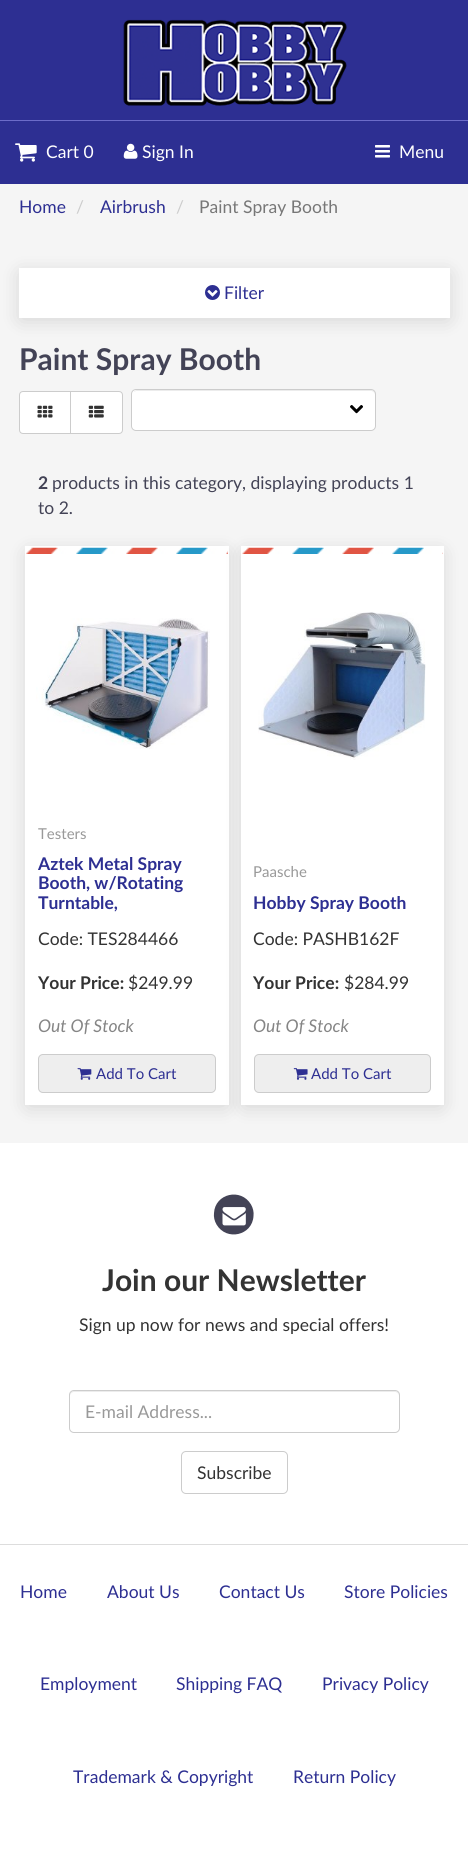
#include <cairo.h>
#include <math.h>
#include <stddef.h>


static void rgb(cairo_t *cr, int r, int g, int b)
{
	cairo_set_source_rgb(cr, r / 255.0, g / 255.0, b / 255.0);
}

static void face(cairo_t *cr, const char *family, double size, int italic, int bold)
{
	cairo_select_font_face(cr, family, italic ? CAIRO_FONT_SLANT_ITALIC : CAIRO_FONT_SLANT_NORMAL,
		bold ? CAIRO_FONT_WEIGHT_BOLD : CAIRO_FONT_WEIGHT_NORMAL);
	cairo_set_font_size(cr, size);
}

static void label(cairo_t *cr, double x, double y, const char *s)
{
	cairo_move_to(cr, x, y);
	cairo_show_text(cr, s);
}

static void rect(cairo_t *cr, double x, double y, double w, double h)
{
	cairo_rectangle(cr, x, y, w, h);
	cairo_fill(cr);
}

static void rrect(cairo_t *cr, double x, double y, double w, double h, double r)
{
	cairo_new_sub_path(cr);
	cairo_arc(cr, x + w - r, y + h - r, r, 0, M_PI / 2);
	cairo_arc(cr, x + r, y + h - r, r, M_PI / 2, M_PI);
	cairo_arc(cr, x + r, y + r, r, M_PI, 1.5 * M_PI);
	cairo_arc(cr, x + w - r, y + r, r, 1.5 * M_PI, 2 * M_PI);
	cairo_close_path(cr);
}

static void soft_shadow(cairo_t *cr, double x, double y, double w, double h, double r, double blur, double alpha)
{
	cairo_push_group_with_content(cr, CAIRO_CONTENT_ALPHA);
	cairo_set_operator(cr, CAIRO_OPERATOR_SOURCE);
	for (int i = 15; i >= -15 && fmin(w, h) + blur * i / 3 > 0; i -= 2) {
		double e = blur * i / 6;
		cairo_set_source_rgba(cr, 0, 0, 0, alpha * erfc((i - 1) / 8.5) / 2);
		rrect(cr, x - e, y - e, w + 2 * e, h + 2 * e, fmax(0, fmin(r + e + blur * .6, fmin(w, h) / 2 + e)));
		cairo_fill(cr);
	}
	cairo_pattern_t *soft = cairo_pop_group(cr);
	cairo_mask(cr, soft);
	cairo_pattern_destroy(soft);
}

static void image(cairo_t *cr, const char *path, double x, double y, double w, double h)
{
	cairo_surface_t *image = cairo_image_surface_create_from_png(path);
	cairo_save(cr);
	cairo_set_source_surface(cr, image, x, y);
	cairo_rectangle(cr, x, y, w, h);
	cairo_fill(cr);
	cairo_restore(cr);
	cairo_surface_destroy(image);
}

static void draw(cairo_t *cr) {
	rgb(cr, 245, 245, 245);
	cairo_paint(cr);
	rgb(cr, 45, 47, 146);
	rect(cr, 0, 0, 468, 120);
	rgb(cr, 108, 108, 201);
	rect(cr, 0, 120, 468, 1);
	image(cr, "image0.png", 123, 19, 224, 87);
	rgb(cr, 45, 47, 146);
	rect(cr, 0, 121, 468, 63);
	image(cr, "image1.png", 15, 143, 22, 19);
	face(cr, "Lato", 17.5, 0, 0);
	rgb(cr, 255, 255, 255);
	label(cr, 46, 158, "Cart 0");
	image(cr, "image2.png", 123, 143, 15, 16);
	label(cr, 142, 158, "Sign In");
	image(cr, "image3.png", 375, 145, 15, 13);
	label(cr, 399, 158, "Menu");
	rgb(cr, 45, 47, 146);
	label(cr, 19, 213, "Home");
	rgb(cr, 204, 204, 204);
	label(cr, 76, 213, "/");
	rgb(cr, 45, 47, 146);
	label(cr, 100, 213, "Airbrush");
	rgb(cr, 204, 204, 204);
	label(cr, 176, 213, "/");
	rgb(cr, 119, 119, 119);
	label(cr, 199, 213, "Paint Spray Booth");
	rgb(cr, 0, 0, 0);
	soft_shadow(cr, 21, 274, 427, 45, 0, 10, 0.15);
	rgb(cr, 255, 255, 255);
	rect(cr, 19, 268, 431, 50);
	image(cr, "image4.png", 205, 285, 15, 15);
	rgb(cr, 45, 47, 146);
	label(cr, 224, 299, "Filter");
	face(cr, "Lato", 30, 0, 1);
	rgb(cr, 67, 67, 86);
	label(cr, 19, 370, "Paint Spray Booth");
	rgb(cr, 255, 255, 255);
	cairo_new_path(cr);
	cairo_move_to(cr, 23, 391.5);
	cairo_line_to(cr, 70.5, 391.5);
	cairo_line_to(cr, 70.5, 433.5);
	cairo_line_to(cr, 23, 433.5);
	cairo_curve_to(cr, 21, 433.5, 19.5, 432, 19.5, 430);
	cairo_line_to(cr, 19.5, 395);
	cairo_curve_to(cr, 19.5, 393, 21, 391.5, 23, 391.5);
	cairo_close_path(cr);
	cairo_fill_preserve(cr);
	rgb(cr, 204, 204, 204);
	cairo_set_line_width(cr, 1);
	cairo_stroke(cr);
	image(cr, "image5.png", 37, 405, 16, 13);
	rgb(cr, 255, 255, 255);
	cairo_new_path(cr);
	cairo_move_to(cr, 70.5, 391.5);
	cairo_line_to(cr, 119, 391.5);
	cairo_curve_to(cr, 121, 391.5, 122.5, 393, 122.5, 395);
	cairo_line_to(cr, 122.5, 430);
	cairo_curve_to(cr, 122.5, 432, 121, 433.5, 119, 433.5);
	cairo_line_to(cr, 70.5, 433.5);
	cairo_close_path(cr);
	cairo_fill_preserve(cr);
	rgb(cr, 204, 204, 204);
	cairo_stroke(cr);
	image(cr, "image6.png", 88, 405, 16, 13);
	rgb(cr, 255, 255, 255);
	rrect(cr, 131, 389, 245, 42, 5);
	cairo_fill(cr);
	image(cr, "image7.png", 350, 405, 13, 9);
	rgb(cr, 236, 236, 236);
	cairo_new_path(cr);
	cairo_move_to(cr, 136, 391);
	cairo_line_to(cr, 371, 391);
	cairo_curve_to(cr, 373, 391, 375, 393, 375, 395);
	cairo_line_to(cr, 375, 394);
	cairo_curve_to(cr, 375, 392, 373, 390, 371, 390);
	cairo_line_to(cr, 137, 390);
	cairo_curve_to(cr, 136, 390, 134, 391, 134, 392);
	cairo_close_path(cr);
	cairo_fill(cr);
	rrect(cr, 131.5, 389.5, 244, 41, 4.5);
	rgb(cr, 204, 204, 204);
	cairo_stroke(cr);
	face(cr, "Lato", 17.5, 0, 1);
	rgb(cr, 67, 67, 86);
	label(cr, 38, 489, "2");
	face(cr, "Lato", 17.5, 0, 0);
	label(cr, 52, 489, "products in this category, displaying products 1");
	label(cr, 38, 514, "to 2.");
	rgb(cr, 0, 0, 0);
	soft_shadow(cr, 28, 553, 198, 553, 0, 10, 0.15);
	rgb(cr, 255, 255, 255);
	rect(cr, 26, 547, 202, 557);
	image(cr, "image8.png", 26, 547, 202, 7);
	cairo_rectangle(cr, 25.5, 546.5, 203, 558);
	cairo_stroke(cr);
	image(cr, "image9.png", 36, 618, 174, 131);
	face(cr, "Lato", 15, 0, 0);
	rgb(cr, 153, 153, 153);
	label(cr, 38, 839, "Testers");
	face(cr, "Lato", 17.5, 0, 1);
	rgb(cr, 45, 47, 146);
	label(cr, 38, 870, "Aztek Metal Spray");
	label(cr, 38, 889, "Booth, w/Rotating");
	label(cr, 38, 909, "Turntable,");
	face(cr, "Lato", 17.5, 0, 0);
	rgb(cr, 51, 51, 51);
	label(cr, 38, 945, "Code: TES284466");
	face(cr, "Lato", 17.5, 0, 1);
	label(cr, 38, 989, "Your Price:");
	face(cr, "Lato", 17.5, 0, 0);
	label(cr, 128, 989, "$249.99");
	face(cr, "Lato", 17.5, 1, 0);
	rgb(cr, 133, 133, 133);
	label(cr, 38, 1032, "Out Of Stock");
	rgb(cr, 238, 238, 238);
	rrect(cr, 38.5, 1054.5, 177, 38, 4.5);
	cairo_fill_preserve(cr);
	rgb(cr, 204, 204, 204);
	cairo_stroke(cr);
	image(cr, "image10.png", 77, 1068, 15, 12);
	face(cr, "Lato", 15, 0, 0);
	rgb(cr, 45, 47, 146);
	label(cr, 96, 1079, "Add To Cart");
	rgb(cr, 0, 0, 0);
	soft_shadow(cr, 244, 553, 197, 553, 0, 10, 0.15);
	rgb(cr, 255, 255, 255);
	rect(cr, 242, 547, 201, 557);
	image(cr, "image11.png", 242, 547, 201, 7);
	cairo_rectangle(cr, 241.5, 546.5, 202, 558);
	cairo_stroke(cr);
	image(cr, "image12.png", 258, 612, 168, 148);
	rgb(cr, 153, 153, 153);
	label(cr, 253, 877, "Paasche");
	face(cr, "Lato", 17.5, 0, 1);
	rgb(cr, 45, 47, 146);
	label(cr, 253, 909, "Hobby Spray Booth");
	face(cr, "Lato", 17.5, 0, 0);
	rgb(cr, 51, 51, 51);
	label(cr, 253, 945, "Code: PASHB162F");
	face(cr, "Lato", 17.5, 0, 1);
	label(cr, 253, 989, "Your Price:");
	face(cr, "Lato", 17.5, 0, 0);
	label(cr, 344, 989, "$284.99");
	face(cr, "Lato", 17.5, 1, 0);
	rgb(cr, 133, 133, 133);
	label(cr, 253, 1032, "Out Of Stock");
	rgb(cr, 238, 238, 238);
	rrect(cr, 254.5, 1054.5, 176, 38, 4.5);
	cairo_fill_preserve(cr);
	rgb(cr, 204, 204, 204);
	cairo_stroke(cr);
	image(cr, "image13.png", 293, 1068, 15, 12);
	face(cr, "Lato", 15, 0, 0);
	rgb(cr, 45, 47, 146);
	label(cr, 311, 1079, "Add To Cart");
	rgb(cr, 255, 255, 255);
	rect(cr, 0, 1143, 468, 401);
	rgb(cr, 67, 67, 86);
	cairo_new_path(cr);
	cairo_move_to(cr, 251, 1204.5);
	cairo_curve_to(cr, 253, 1208, 254, 1212, 253.5, 1216);
	cairo_curve_to(cr, 252.5, 1235.5, 226.5, 1241.5, 216.5, 1224.5);
	cairo_curve_to(cr, 214.5, 1221, 213.5, 1217, 214, 1213);
	cairo_curve_to(cr, 215, 1193.5, 241, 1187.5, 251, 1204.5);
	cairo_close_path(cr);
	cairo_fill(cr);
	image(cr, "image14.png", 222, 1207, 24, 19);
	face(cr, "Lato", 30, 0, 1);
	rgb(cr, 51, 51, 51);
	label(cr, 102, 1291, "Join our Newsletter");
	face(cr, "Lato", 17.5, 0, 0);
	label(cr, 79, 1331, "Sign up now for news and special offers!");
	rgb(cr, 236, 236, 236);
	cairo_new_path(cr);
	cairo_move_to(cr, 74, 1392);
	cairo_line_to(cr, 395, 1392);
	cairo_curve_to(cr, 397, 1392, 399, 1394, 399, 1396);
	cairo_line_to(cr, 399, 1395);
	cairo_curve_to(cr, 399, 1393, 397, 1391, 395, 1391);
	cairo_line_to(cr, 74, 1391);
	cairo_curve_to(cr, 72, 1391, 70, 1393, 70, 1395);
	cairo_line_to(cr, 70, 1396);
	cairo_curve_to(cr, 70, 1394, 72, 1392, 74, 1392);
	cairo_close_path(cr);
	cairo_fill(cr);
	rrect(cr, 69.5, 1390.5, 330, 42, 4.5);
	rgb(cr, 204, 204, 204);
	cairo_stroke(cr);
	rgb(cr, 153, 153, 153);
	label(cr, 85, 1418, "E-mail Address...");
	rrect(cr, 181.5, 1451.5, 106, 42, 4.5);
	rgb(cr, 204, 204, 204);
	cairo_stroke(cr);
	rgb(cr, 51, 51, 51);
	label(cr, 197, 1479, "Subscribe");
	rgb(cr, 255, 255, 255);
	rect(cr, 0, 1545, 468, 305);
	rgb(cr, 221, 221, 221);
	rect(cr, 0, 1544, 468, 1);
	rgb(cr, 45, 47, 146);
	label(cr, 20, 1598, "Home");
	label(cr, 107, 1598, "About Us");
	label(cr, 219, 1598, "Contact Us");
	label(cr, 344, 1598, "Store Policies");
	label(cr, 40, 1690, "Employment");
	label(cr, 176, 1690, "Shipping FAQ");
	label(cr, 322, 1690, "Privacy Policy");
	label(cr, 73, 1783, "Trademark & Copyright");
	label(cr, 293, 1783, "Return Policy");
}

int main(void) {
	cairo_surface_t *surface = cairo_image_surface_create(CAIRO_FORMAT_RGB24, 468, 1850);
	cairo_t *cr = cairo_create(surface);
	cairo_font_options_t *options = cairo_font_options_create();
	cairo_font_options_set_hint_metrics(options, CAIRO_HINT_METRICS_OFF);
	cairo_font_options_set_hint_style(options, CAIRO_HINT_STYLE_NONE);
	cairo_set_font_options(cr, options);
	cairo_set_miter_limit(cr, 4);
	draw(cr);
	cairo_surface_write_to_png(surface, "render.png");
	cairo_font_options_destroy(options);
	cairo_destroy(cr);
	cairo_surface_destroy(surface);
	return 0;
}
